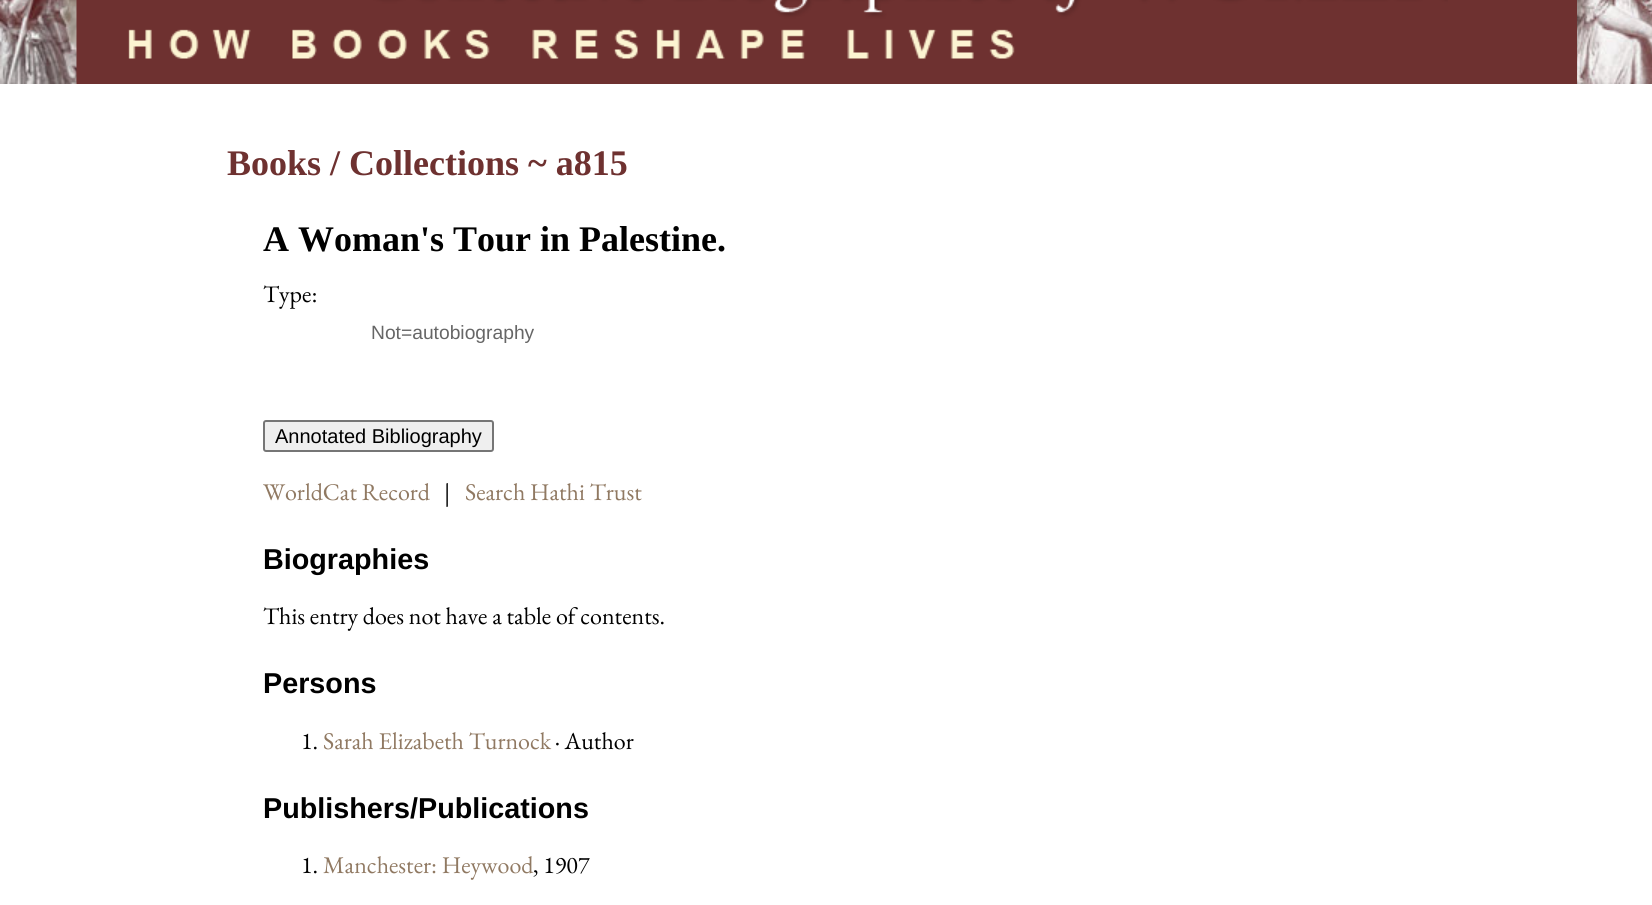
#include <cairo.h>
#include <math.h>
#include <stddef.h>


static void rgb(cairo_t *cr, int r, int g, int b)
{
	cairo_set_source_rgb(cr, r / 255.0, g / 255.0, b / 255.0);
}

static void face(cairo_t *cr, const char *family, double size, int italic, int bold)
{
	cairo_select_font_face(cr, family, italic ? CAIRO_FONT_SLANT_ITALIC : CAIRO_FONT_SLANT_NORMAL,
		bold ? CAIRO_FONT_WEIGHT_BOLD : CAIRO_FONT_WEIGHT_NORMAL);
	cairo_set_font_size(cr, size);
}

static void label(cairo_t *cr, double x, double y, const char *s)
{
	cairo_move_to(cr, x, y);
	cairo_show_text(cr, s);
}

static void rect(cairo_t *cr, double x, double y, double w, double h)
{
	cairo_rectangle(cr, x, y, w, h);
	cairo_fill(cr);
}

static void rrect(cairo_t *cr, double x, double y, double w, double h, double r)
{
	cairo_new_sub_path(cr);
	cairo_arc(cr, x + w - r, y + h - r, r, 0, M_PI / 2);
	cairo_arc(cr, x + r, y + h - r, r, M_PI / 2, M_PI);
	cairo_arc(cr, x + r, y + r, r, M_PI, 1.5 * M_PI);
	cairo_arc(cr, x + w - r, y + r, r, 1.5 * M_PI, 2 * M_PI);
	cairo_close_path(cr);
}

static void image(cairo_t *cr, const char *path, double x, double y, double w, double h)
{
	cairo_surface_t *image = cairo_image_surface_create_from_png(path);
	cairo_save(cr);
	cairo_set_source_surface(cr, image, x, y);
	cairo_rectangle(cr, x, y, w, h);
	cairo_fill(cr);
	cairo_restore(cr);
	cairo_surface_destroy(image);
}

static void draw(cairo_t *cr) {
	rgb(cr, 255, 255, 255);
	cairo_paint(cr);
	image(cr, "image0.png", 0, 0, 1652, 84);
	rgb(cr, 110, 49, 48);
	rect(cr, 1448, 0, 129, 84);
	image(cr, "image1.png", 76, 0, 1372, 84);
	face(cr, "Liberation Serif", 36, 0, 1);
	label(cr, 227, 175, "Books / Collections ~ a815");
	rgb(cr, 0, 0, 0);
	label(cr, 263, 251, "A Woman's Tour in Palestine.");
	face(cr, "EB Garamond", 24, 0, 0);
	label(cr, 263, 302, "Type:");
	face(cr, "Liberation Sans", 19.25, 0, 0);
	rgb(cr, 102, 102, 102);
	label(cr, 371, 339, "Not=autobiography");
	rgb(cr, 239, 239, 239);
	rrect(cr, 264, 421, 229, 30, 2);
	cairo_fill_preserve(cr);
	rgb(cr, 118, 118, 118);
	cairo_stroke(cr);
	face(cr, "Liberation Sans", 20, 0, 0);
	rgb(cr, 0, 0, 0);
	label(cr, 275, 443, "Annotated Bibliography");
	face(cr, "EB Garamond", 24, 0, 0);
	rgb(cr, 144, 121, 98);
	label(cr, 263, 500, "WorldCat Record");
	rgb(cr, 0, 0, 0);
	label(cr, 444, 500, "|");
	rgb(cr, 144, 121, 98);
	label(cr, 465, 500, "Search Hathi Trust");
	face(cr, "Liberation Sans", 28.75, 0, 1);
	rgb(cr, 0, 0, 0);
	label(cr, 263, 569, "Biographies");
	face(cr, "EB Garamond", 24, 0, 0);
	label(cr, 263, 624, "This entry does not have a table of contents.");
	face(cr, "Liberation Sans", 28.75, 0, 1);
	label(cr, 263, 693, "Persons");
	face(cr, "EB Garamond", 24, 0, 0);
	label(cr, 301, 749, "1.");
	rgb(cr, 144, 121, 98);
	label(cr, 323, 749, "Sarah Elizabeth Turnock");
	rgb(cr, 0, 0, 0);
	label(cr, 555, 749, "· Author");
	face(cr, "Liberation Sans", 28.75, 0, 1);
	label(cr, 263, 818, "Publishers/Publications");
	face(cr, "EB Garamond", 24, 0, 0);
	label(cr, 301, 873, "1.");
	rgb(cr, 144, 121, 98);
	label(cr, 323, 873, "Manchester: Heywood");
	rgb(cr, 0, 0, 0);
	label(cr, 533, 873, ", 1907");
}

int main(void) {
	cairo_surface_t *surface = cairo_image_surface_create(CAIRO_FORMAT_RGB24, 1652, 905);
	cairo_t *cr = cairo_create(surface);
	cairo_font_options_t *options = cairo_font_options_create();
	cairo_font_options_set_hint_metrics(options, CAIRO_HINT_METRICS_OFF);
	cairo_font_options_set_hint_style(options, CAIRO_HINT_STYLE_NONE);
	cairo_set_font_options(cr, options);
	cairo_set_miter_limit(cr, 4);
	draw(cr);
	cairo_surface_write_to_png(surface, "render.png");
	cairo_font_options_destroy(options);
	cairo_destroy(cr);
	cairo_surface_destroy(surface);
	return 0;
}
